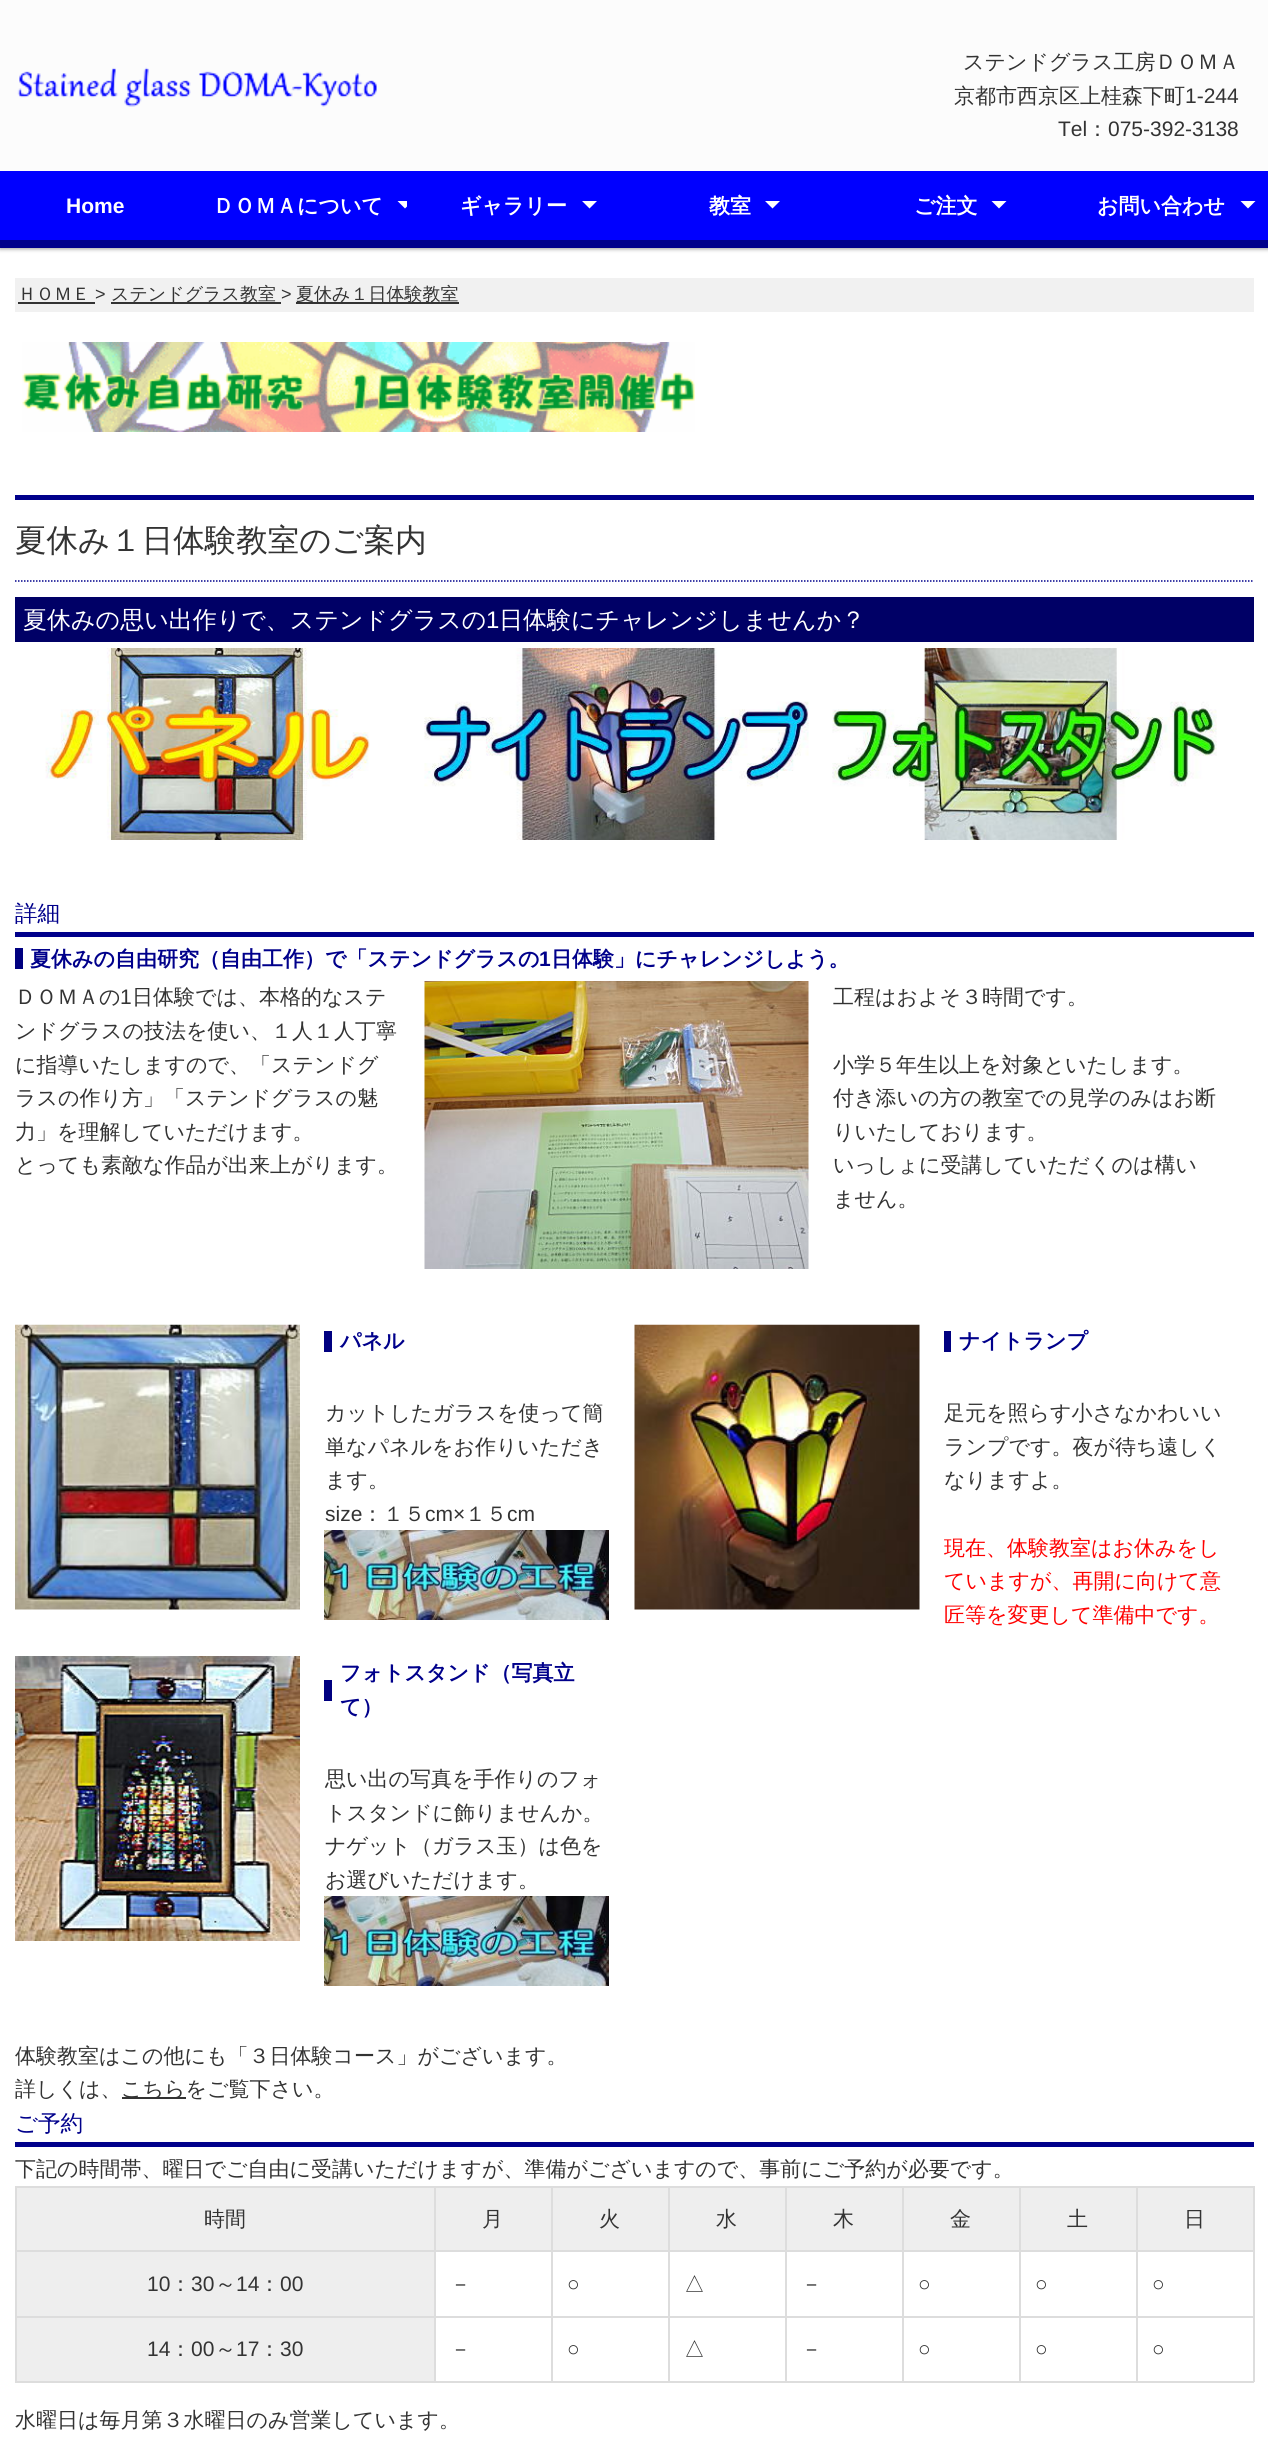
#include <cairo.h>
#include <math.h>
#include <stddef.h>


static void rgb(cairo_t *cr, int r, int g, int b)
{
	cairo_set_source_rgb(cr, r / 255.0, g / 255.0, b / 255.0);
}

static void face(cairo_t *cr, const char *family, double size, int italic, int bold)
{
	cairo_select_font_face(cr, family, italic ? CAIRO_FONT_SLANT_ITALIC : CAIRO_FONT_SLANT_NORMAL,
		bold ? CAIRO_FONT_WEIGHT_BOLD : CAIRO_FONT_WEIGHT_NORMAL);
	cairo_set_font_size(cr, size);
}

static void label(cairo_t *cr, double x, double y, const char *s)
{
	cairo_move_to(cr, x, y);
	cairo_show_text(cr, s);
}

static void rect(cairo_t *cr, double x, double y, double w, double h)
{
	cairo_rectangle(cr, x, y, w, h);
	cairo_fill(cr);
}

static void rrect(cairo_t *cr, double x, double y, double w, double h, double r)
{
	cairo_new_sub_path(cr);
	cairo_arc(cr, x + w - r, y + h - r, r, 0, M_PI / 2);
	cairo_arc(cr, x + r, y + h - r, r, M_PI / 2, M_PI);
	cairo_arc(cr, x + r, y + r, r, M_PI, 1.5 * M_PI);
	cairo_arc(cr, x + w - r, y + r, r, 1.5 * M_PI, 2 * M_PI);
	cairo_close_path(cr);
}

static void soft_shadow(cairo_t *cr, double x, double y, double w, double h, double r, double blur, double alpha)
{
	cairo_push_group_with_content(cr, CAIRO_CONTENT_ALPHA);
	cairo_set_operator(cr, CAIRO_OPERATOR_SOURCE);
	for (int i = 15; i >= -15 && fmin(w, h) + blur * i / 3 > 0; i -= 2) {
		double e = blur * i / 6;
		cairo_set_source_rgba(cr, 0, 0, 0, alpha * erfc((i - 1) / 8.5) / 2);
		rrect(cr, x - e, y - e, w + 2 * e, h + 2 * e, fmax(0, fmin(r + e + blur * .6, fmin(w, h) / 2 + e)));
		cairo_fill(cr);
	}
	cairo_pattern_t *soft = cairo_pop_group(cr);
	cairo_mask(cr, soft);
	cairo_pattern_destroy(soft);
}

static void image(cairo_t *cr, const char *path, double x, double y, double w, double h)
{
	cairo_surface_t *image = cairo_image_surface_create_from_png(path);
	cairo_save(cr);
	cairo_set_source_surface(cr, image, x, y);
	cairo_rectangle(cr, x, y, w, h);
	cairo_fill(cr);
	cairo_restore(cr);
	cairo_surface_destroy(image);
}

static void draw(cairo_t *cr) {
	rgb(cr, 255, 255, 255);
	cairo_paint(cr);
	rgb(cr, 153, 153, 153);
	soft_shadow(cr, 0, 173, 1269, 76, 0, 2, 1);
	rgb(cr, 252, 252, 252);
	rect(cr, 0, 0, 1268, 171);
	image(cr, "image0.png", 17, 67, 360, 40);
	face(cr, "WenQuanYi Zen Hei Medium", 21, 0, 0);
	rgb(cr, 51, 51, 51);
	label(cr, 963, 69, "ステンドグラス工房ＤＯＭＡ");
	label(cr, 954, 103, "京都市西京区上桂森下町");
	face(cr, "Liberation Sans", 21, 0, 0);
	label(cr, 1185, 103, "1-244");
	label(cr, 1058, 136, "Tel");
	face(cr, "WenQuanYi Zen Hei Medium", 21, 0, 0);
	label(cr, 1087, 136, "：");
	face(cr, "Liberation Sans", 21, 0, 0);
	label(cr, 1108, 136, "075-392-3138");
	rgb(cr, 0, 0, 255);
	rect(cr, 0, 171, 1268, 69);
	rgb(cr, 0, 0, 139);
	rect(cr, 0, 240, 1268, 8);
	face(cr, "Liberation Sans", 21, 0, 1);
	rgb(cr, 255, 255, 255);
	label(cr, 66, 213, "Home");
	face(cr, "WenQuanYi Zen Hei", 21, 0, 1);
	label(cr, 213, 213, "ＤＯＭＡについて");
	cairo_new_path(cr);
	cairo_move_to(cr, 397.5, 201);
	cairo_line_to(cr, 412.5, 201);
	cairo_line_to(cr, 405, 208.5);
	cairo_close_path(cr);
	cairo_fill(cr);
	rgb(cr, 0, 0, 255);
	rect(cr, 407, 201, 6, 6);
	rgb(cr, 255, 255, 255);
	label(cr, 460, 213, "ギャラリー");
	cairo_new_path(cr);
	cairo_move_to(cr, 582, 201);
	cairo_line_to(cr, 597, 201);
	cairo_line_to(cr, 589.5, 208.5);
	cairo_close_path(cr);
	cairo_fill(cr);
	label(cr, 709, 213, "教室");
	cairo_new_path(cr);
	cairo_move_to(cr, 765, 201);
	cairo_line_to(cr, 780, 201);
	cairo_line_to(cr, 772.5, 208.5);
	cairo_close_path(cr);
	cairo_fill(cr);
	label(cr, 914, 213, "ご注文");
	cairo_new_path(cr);
	cairo_move_to(cr, 991.5, 201);
	cairo_line_to(cr, 1006.5, 201);
	cairo_line_to(cr, 999, 208.5);
	cairo_close_path(cr);
	cairo_fill(cr);
	label(cr, 1097, 213, "お問い合わせ");
	cairo_new_path(cr);
	cairo_move_to(cr, 1240.5, 201);
	cairo_line_to(cr, 1255.5, 201);
	cairo_line_to(cr, 1248, 208.5);
	cairo_close_path(cr);
	cairo_fill(cr);
	rgb(cr, 241, 241, 241);
	rect(cr, 15, 278, 1239, 34);
	face(cr, "WenQuanYi Zen Hei Medium", 18, 0, 0);
	rgb(cr, 51, 51, 51);
	label(cr, 18, 300, "ＨＯＭＥ");
	rect(cr, 18, 302, 77, 2);
	face(cr, "Liberation Sans", 18, 0, 0);
	label(cr, 95, 300, ">");
	rect(cr, 111, 302, 170, 2);
	face(cr, "WenQuanYi Zen Hei Medium", 18, 0, 0);
	label(cr, 111, 300, "ステンドグラス教室");
	face(cr, "Liberation Sans", 18, 0, 0);
	label(cr, 281, 300, ">");
	rect(cr, 296, 302, 163, 2);
	face(cr, "WenQuanYi Zen Hei Medium", 18, 0, 0);
	label(cr, 296, 300, "夏休み１日体験教室");
	image(cr, "image1.png", 22, 342, 673, 90);
	rgb(cr, 0, 0, 139);
	rect(cr, 15, 495, 1239, 5);
	cairo_new_path(cr);
	cairo_move_to(cr, 15, 581);
	cairo_line_to(cr, 1254, 581);
	cairo_set_line_width(cr, 1.5);
	cairo_set_dash(cr, (double[]){1.5, 1.5}, 2, 0);
	cairo_stroke(cr);
	face(cr, "WenQuanYi Zen Hei Medium", 31.5, 0, 0);
	rgb(cr, 51, 51, 51);
	label(cr, 15, 551, "夏休み１日体験教室のご案内");
	rgb(cr, 0, 0, 102);
	rect(cr, 15, 597, 1239, 45);
	face(cr, "WenQuanYi Zen Hei Medium", 24, 0, 0);
	rgb(cr, 255, 255, 255);
	label(cr, 23, 628, "夏休みの思い出作りで、ステンドグラスの");
	face(cr, "Liberation Sans", 24, 0, 0);
	label(cr, 486, 628, "1");
	face(cr, "WenQuanYi Zen Hei Medium", 24, 0, 0);
	label(cr, 499, 628, "日体験にチャレンジしませんか？");
	image(cr, "image2.png", 45, 648, 325, 192);
	image(cr, "image3.png", 424, 648, 385, 192);
	image(cr, "image4.png", 832, 648, 385, 192);
	rgb(cr, 0, 0, 139);
	rect(cr, 15, 932, 1239, 5);
	face(cr, "WenQuanYi Zen Hei Medium", 22.5, 0, 0);
	label(cr, 15, 921, "詳細");
	rgb(cr, 0, 0, 128);
	rect(cr, 15, 948, 8, 21);
	face(cr, "WenQuanYi Zen Hei", 21, 0, 1);
	rgb(cr, 0, 0, 139);
	label(cr, 30, 966, "夏休みの自由研究（自由工作）で「ステンドグラスの");
	face(cr, "Liberation Sans", 21, 0, 1);
	label(cr, 539, 966, "1");
	face(cr, "WenQuanYi Zen Hei", 21, 0, 1);
	label(cr, 551, 966, "日体験」にチャレンジしよう。");
	face(cr, "WenQuanYi Zen Hei Medium", 21, 0, 0);
	rgb(cr, 51, 51, 51);
	label(cr, 15, 1004, "ＤＯＭＡの");
	face(cr, "Liberation Sans", 21, 0, 0);
	label(cr, 120, 1004, "1");
	face(cr, "WenQuanYi Zen Hei Medium", 21, 0, 0);
	label(cr, 132, 1004, "日体験では、本格的なステ");
	label(cr, 15, 1038, "ンドグラスの技法を使い、１人１人丁寧");
	label(cr, 15, 1072, "に指導いたしますので、「ステンドグ");
	label(cr, 15, 1105, "ラスの作り方」「ステンドグラスの魅");
	label(cr, 15, 1139, "力」を理解していただけます。");
	label(cr, 15, 1172, "とっても素敵な作品が出来上がります。");
	image(cr, "image5.png", 424, 981, 385, 288);
	label(cr, 833, 1004, "工程はおよそ３時間です。");
	label(cr, 833, 1072, "小学５年生以上を対象といたします。");
	label(cr, 833, 1105, "付き添いの方の教室での見学のみはお断");
	label(cr, 833, 1139, "りいたしております。");
	label(cr, 833, 1172, "いっしょに受講していただくのは構い");
	label(cr, 833, 1206, "ません。");
	image(cr, "image6.png", 15, 1324, 285, 286);
	rgb(cr, 0, 0, 128);
	rect(cr, 324, 1331, 8, 21);
	face(cr, "WenQuanYi Zen Hei", 21, 0, 1);
	rgb(cr, 0, 0, 139);
	label(cr, 340, 1348, "パネル");
	face(cr, "WenQuanYi Zen Hei Medium", 21, 0, 0);
	rgb(cr, 51, 51, 51);
	label(cr, 325, 1420, "カットしたガラスを使って簡");
	label(cr, 325, 1454, "単なパネルをお作りいただき");
	label(cr, 325, 1487, "ます。");
	face(cr, "Liberation Sans", 21, 0, 0);
	label(cr, 325, 1521, "size");
	face(cr, "WenQuanYi Zen Hei Medium", 21, 0, 0);
	label(cr, 362, 1521, "：１５");
	face(cr, "Liberation Sans", 21, 0, 0);
	label(cr, 425, 1521, "cm×");
	face(cr, "WenQuanYi Zen Hei Medium", 21, 0, 0);
	label(cr, 465, 1521, "１５");
	face(cr, "Liberation Sans", 21, 0, 0);
	label(cr, 507, 1521, "cm");
	image(cr, "image7.png", 324, 1530, 285, 90);
	image(cr, "image8.png", 634, 1324, 286, 286);
	rgb(cr, 0, 0, 128);
	rect(cr, 944, 1331, 7, 21);
	face(cr, "WenQuanYi Zen Hei", 21, 0, 1);
	rgb(cr, 0, 0, 139);
	label(cr, 959, 1348, "ナイトランプ");
	face(cr, "WenQuanYi Zen Hei Medium", 21, 0, 0);
	rgb(cr, 51, 51, 51);
	label(cr, 944, 1420, "足元を照らす小さなかわいい");
	label(cr, 944, 1454, "ランプです。夜が待ち遠しく");
	label(cr, 944, 1487, "なりますよ。");
	rgb(cr, 255, 0, 0);
	label(cr, 944, 1555, "現在、体験教室はお休みをし");
	label(cr, 944, 1588, "ていますが、再開に向けて意");
	label(cr, 944, 1622, "匠等を変更して準備中です。");
	image(cr, "image9.png", 15, 1656, 285, 285);
	face(cr, "WenQuanYi Zen Hei", 21, 0, 1);
	rgb(cr, 0, 0, 139);
	label(cr, 340, 1680, "フォトスタンド（写真立");
	rgb(cr, 0, 0, 128);
	rect(cr, 324, 1680, 8, 21);
	rgb(cr, 0, 0, 139);
	label(cr, 340, 1714, "て）");
	face(cr, "WenQuanYi Zen Hei Medium", 21, 0, 0);
	rgb(cr, 51, 51, 51);
	label(cr, 325, 1786, "思い出の写真を手作りのフォ");
	label(cr, 325, 1820, "トスタンドに飾りませんか。");
	label(cr, 325, 1853, "ナゲット（ガラス玉）は色を");
	label(cr, 325, 1887, "お選びいただけます。");
	image(cr, "image7.png", 324, 1896, 285, 90);
	label(cr, 15, 2063, "体験教室はこの他にも「３日体験コース」がございます。");
	label(cr, 15, 2096, "詳しくは、");
	rect(cr, 122, 2097, 64, 2);
	label(cr, 121, 2096, "こちらをご覧下さい。");
	rgb(cr, 0, 0, 139);
	rect(cr, 15, 2142, 1239, 5);
	face(cr, "WenQuanYi Zen Hei Medium", 22.5, 0, 0);
	label(cr, 15, 2131, "ご予約");
	face(cr, "WenQuanYi Zen Hei Medium", 21, 0, 0);
	rgb(cr, 51, 51, 51);
	label(cr, 15, 2176, "下記の時間帯、曜日でご自由に受講いただけますが、準備がございますので、事前にご予約が必要です。");
	rgb(cr, 221, 221, 221);
	rect(cr, 15, 2186, 1239, 2);
	rect(cr, 1253, 2186, 2, 196);
	rect(cr, 15, 2381, 1239, 2);
	rect(cr, 15, 2186, 2, 196);
	rgb(cr, 238, 238, 238);
	rect(cr, 17, 2188, 417, 62);
	rgb(cr, 51, 51, 51);
	label(cr, 204, 2226, "時間");
	rgb(cr, 238, 238, 238);
	rect(cr, 436, 2188, 115, 62);
	rgb(cr, 221, 221, 221);
	rect(cr, 1136, 2250, 118, 2);
	rect(cr, 1136, 2316, 118, 2);
	rect(cr, 1136, 2316, 2, 66);
	rect(cr, 1019, 2316, 118, 2);
	rect(cr, 1136, 2250, 2, 68);
	rect(cr, 1019, 2250, 118, 2);
	rect(cr, 1019, 2316, 2, 66);
	rect(cr, 902, 2316, 118, 2);
	rect(cr, 1019, 2250, 2, 68);
	rect(cr, 902, 2250, 118, 2);
	rect(cr, 902, 2316, 2, 66);
	rect(cr, 785, 2316, 118, 2);
	rect(cr, 902, 2250, 2, 68);
	rect(cr, 785, 2250, 118, 2);
	rect(cr, 785, 2316, 2, 66);
	rect(cr, 668, 2316, 118, 2);
	rect(cr, 785, 2250, 2, 68);
	rect(cr, 668, 2250, 118, 2);
	rect(cr, 668, 2316, 2, 66);
	rect(cr, 551, 2316, 118, 2);
	rect(cr, 668, 2250, 2, 68);
	rect(cr, 551, 2250, 118, 2);
	rect(cr, 551, 2316, 2, 66);
	rect(cr, 434, 2316, 118, 2);
	rect(cr, 551, 2250, 2, 68);
	rect(cr, 434, 2250, 118, 2);
	rect(cr, 434, 2316, 2, 66);
	rect(cr, 15, 2316, 420, 2);
	rect(cr, 434, 2250, 2, 68);
	rect(cr, 15, 2250, 420, 2);
	rect(cr, 434, 2186, 2, 66);
	rgb(cr, 51, 51, 51);
	label(cr, 482, 2226, "月");
	rgb(cr, 238, 238, 238);
	rect(cr, 553, 2188, 115, 62);
	rgb(cr, 221, 221, 221);
	rect(cr, 551, 2186, 2, 66);
	rgb(cr, 51, 51, 51);
	label(cr, 599, 2226, "火");
	rgb(cr, 238, 238, 238);
	rect(cr, 670, 2188, 115, 62);
	rgb(cr, 221, 221, 221);
	rect(cr, 668, 2186, 2, 66);
	rgb(cr, 51, 51, 51);
	label(cr, 716, 2226, "水");
	rgb(cr, 238, 238, 238);
	rect(cr, 787, 2188, 115, 62);
	rgb(cr, 221, 221, 221);
	rect(cr, 785, 2186, 2, 66);
	rgb(cr, 51, 51, 51);
	label(cr, 833, 2226, "木");
	rgb(cr, 238, 238, 238);
	rect(cr, 904, 2188, 115, 62);
	rgb(cr, 221, 221, 221);
	rect(cr, 902, 2186, 2, 66);
	rgb(cr, 51, 51, 51);
	label(cr, 950, 2226, "金");
	rgb(cr, 238, 238, 238);
	rect(cr, 1021, 2188, 115, 62);
	rgb(cr, 221, 221, 221);
	rect(cr, 1019, 2186, 2, 66);
	rgb(cr, 51, 51, 51);
	label(cr, 1067, 2226, "土");
	rgb(cr, 238, 238, 238);
	rect(cr, 1138, 2188, 115, 62);
	rgb(cr, 221, 221, 221);
	rect(cr, 1136, 2186, 2, 66);
	rgb(cr, 51, 51, 51);
	label(cr, 1184, 2226, "日");
	rgb(cr, 238, 238, 238);
	rect(cr, 17, 2252, 417, 64);
	face(cr, "Liberation Sans", 21, 0, 0);
	rgb(cr, 51, 51, 51);
	label(cr, 147, 2291, "10");
	face(cr, "WenQuanYi Zen Hei Medium", 21, 0, 0);
	label(cr, 170, 2291, "：");
	face(cr, "Liberation Sans", 21, 0, 0);
	label(cr, 191, 2291, "30");
	face(cr, "WenQuanYi Zen Hei Medium", 21, 0, 0);
	label(cr, 215, 2291, "～");
	face(cr, "Liberation Sans", 21, 0, 0);
	label(cr, 236, 2291, "14");
	face(cr, "WenQuanYi Zen Hei Medium", 21, 0, 0);
	label(cr, 259, 2291, "：");
	face(cr, "Liberation Sans", 21, 0, 0);
	label(cr, 280, 2291, "00");
	face(cr, "WenQuanYi Zen Hei Medium", 21, 0, 0);
	label(cr, 450, 2291, "－");
	face(cr, "Liberation Sans", 21, 0, 0);
	label(cr, 567, 2291, "○");
	face(cr, "WenQuanYi Zen Hei Medium", 21, 0, 0);
	label(cr, 684, 2291, "△");
	label(cr, 801, 2291, "－");
	face(cr, "Liberation Sans", 21, 0, 0);
	label(cr, 918, 2291, "○");
	label(cr, 1035, 2291, "○");
	label(cr, 1152, 2291, "○");
	rgb(cr, 238, 238, 238);
	rect(cr, 17, 2318, 417, 63);
	rgb(cr, 51, 51, 51);
	label(cr, 147, 2356, "14");
	face(cr, "WenQuanYi Zen Hei Medium", 21, 0, 0);
	label(cr, 170, 2356, "：");
	face(cr, "Liberation Sans", 21, 0, 0);
	label(cr, 191, 2356, "00");
	face(cr, "WenQuanYi Zen Hei Medium", 21, 0, 0);
	label(cr, 215, 2356, "～");
	face(cr, "Liberation Sans", 21, 0, 0);
	label(cr, 236, 2356, "17");
	face(cr, "WenQuanYi Zen Hei Medium", 21, 0, 0);
	label(cr, 259, 2356, "：");
	face(cr, "Liberation Sans", 21, 0, 0);
	label(cr, 280, 2356, "30");
	face(cr, "WenQuanYi Zen Hei Medium", 21, 0, 0);
	label(cr, 450, 2356, "－");
	face(cr, "Liberation Sans", 21, 0, 0);
	label(cr, 567, 2356, "○");
	face(cr, "WenQuanYi Zen Hei Medium", 21, 0, 0);
	label(cr, 684, 2356, "△");
	label(cr, 801, 2356, "－");
	face(cr, "Liberation Sans", 21, 0, 0);
	label(cr, 918, 2356, "○");
	label(cr, 1035, 2356, "○");
	label(cr, 1152, 2356, "○");
	face(cr, "WenQuanYi Zen Hei Medium", 21, 0, 0);
	label(cr, 15, 2427, "水曜日は毎月第３水曜日のみ営業しています。");
}

int main(void) {
	cairo_surface_t *surface = cairo_image_surface_create(CAIRO_FORMAT_RGB24, 1268, 2444);
	cairo_t *cr = cairo_create(surface);
	cairo_font_options_t *options = cairo_font_options_create();
	cairo_font_options_set_hint_metrics(options, CAIRO_HINT_METRICS_OFF);
	cairo_font_options_set_hint_style(options, CAIRO_HINT_STYLE_NONE);
	cairo_set_font_options(cr, options);
	cairo_set_miter_limit(cr, 4);
	draw(cr);
	cairo_surface_write_to_png(surface, "render.png");
	cairo_font_options_destroy(options);
	cairo_destroy(cr);
	cairo_surface_destroy(surface);
	return 0;
}
